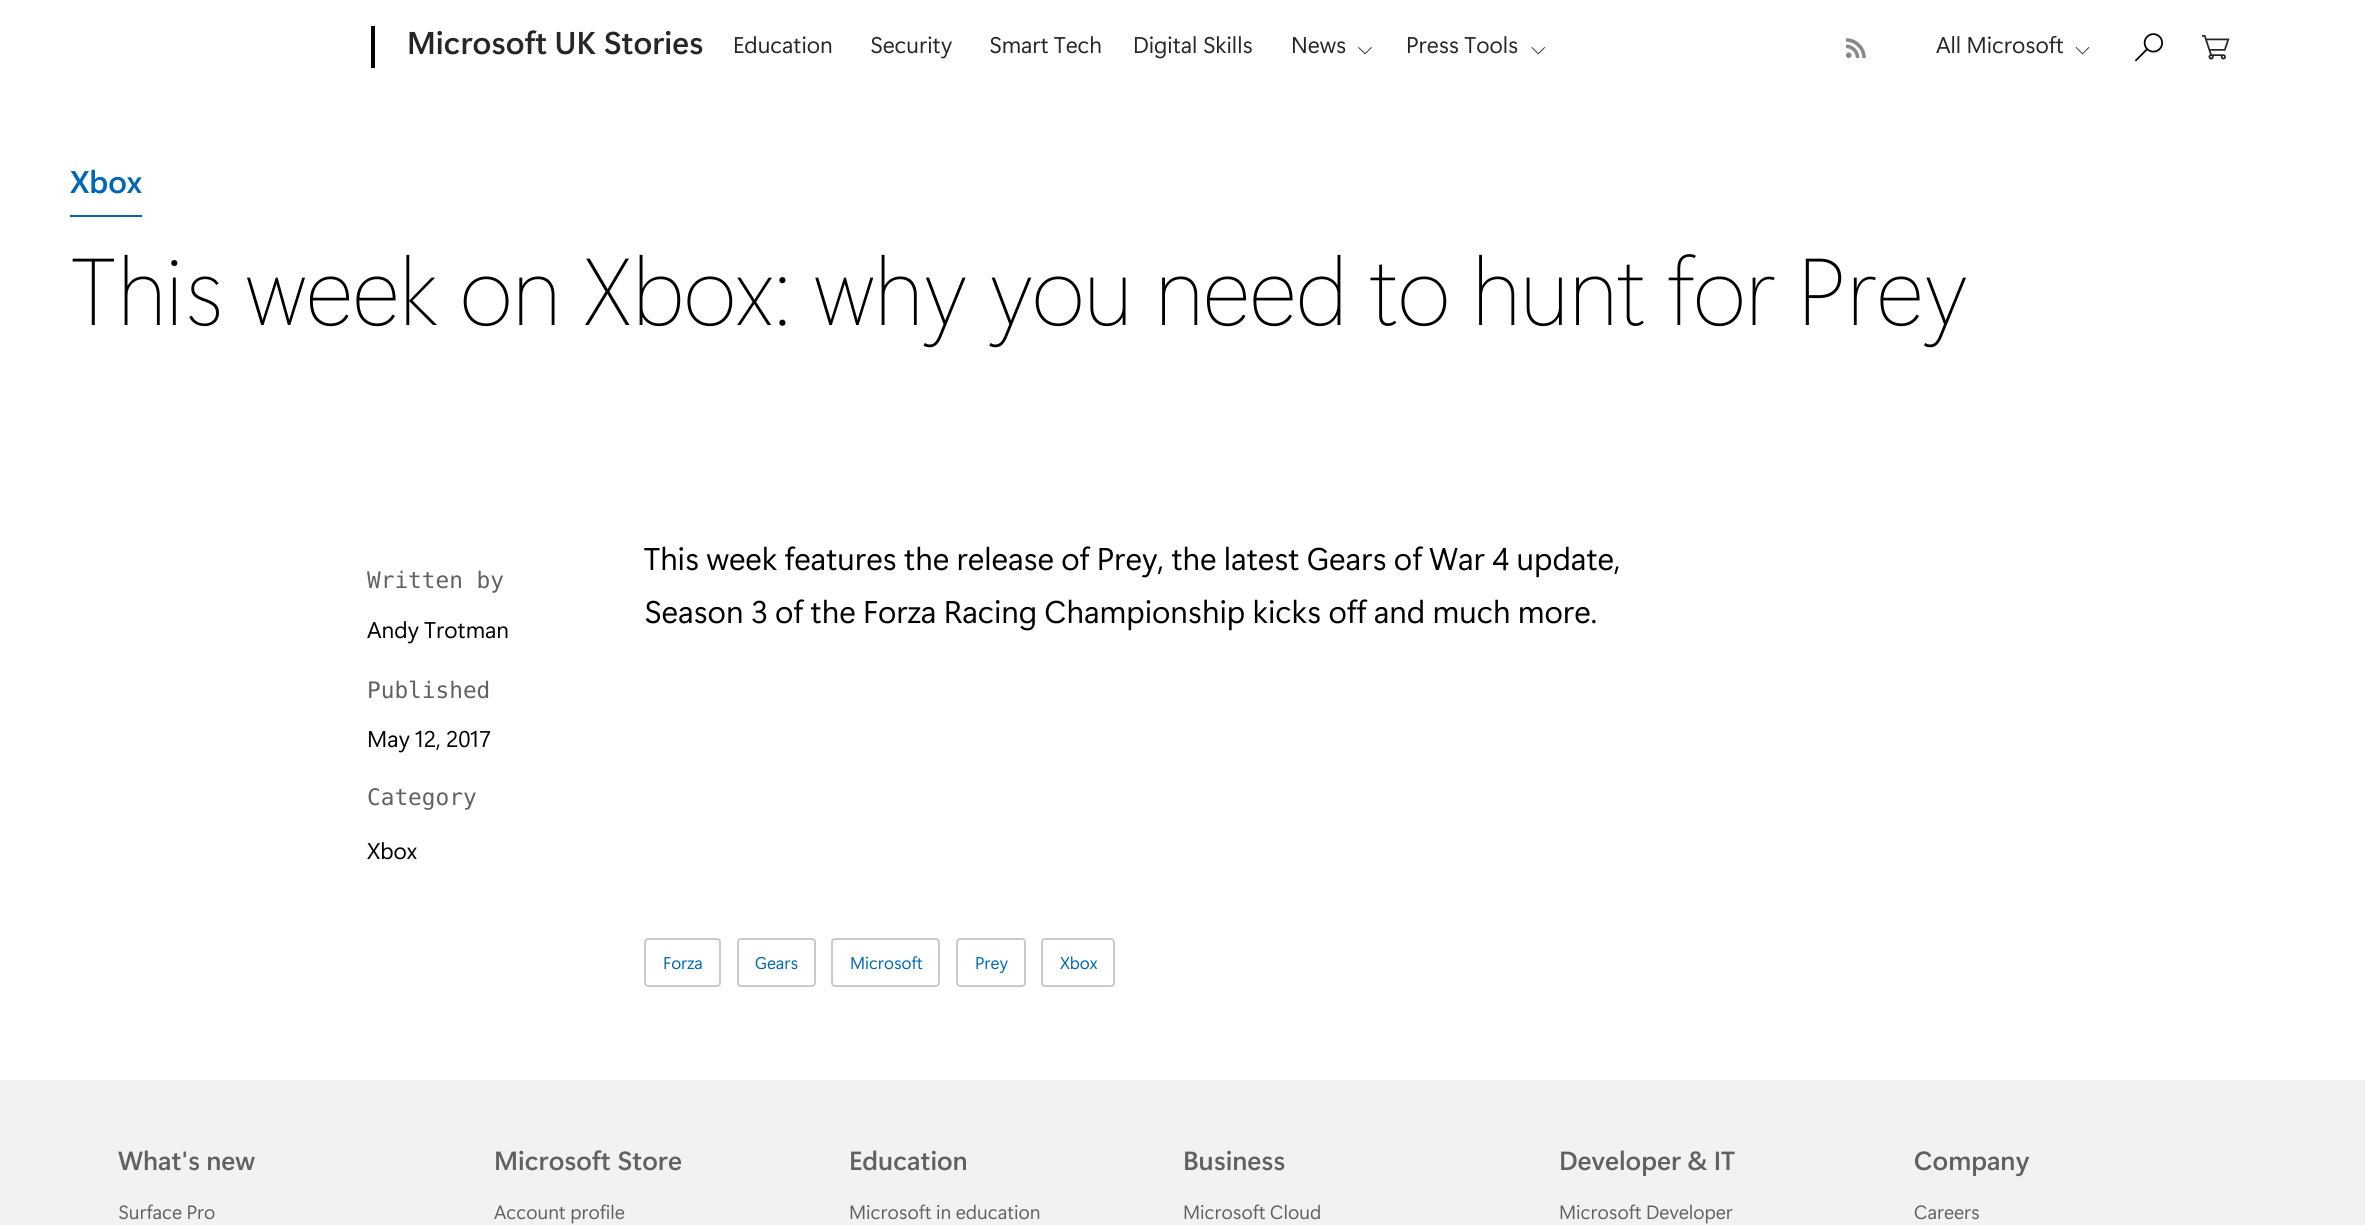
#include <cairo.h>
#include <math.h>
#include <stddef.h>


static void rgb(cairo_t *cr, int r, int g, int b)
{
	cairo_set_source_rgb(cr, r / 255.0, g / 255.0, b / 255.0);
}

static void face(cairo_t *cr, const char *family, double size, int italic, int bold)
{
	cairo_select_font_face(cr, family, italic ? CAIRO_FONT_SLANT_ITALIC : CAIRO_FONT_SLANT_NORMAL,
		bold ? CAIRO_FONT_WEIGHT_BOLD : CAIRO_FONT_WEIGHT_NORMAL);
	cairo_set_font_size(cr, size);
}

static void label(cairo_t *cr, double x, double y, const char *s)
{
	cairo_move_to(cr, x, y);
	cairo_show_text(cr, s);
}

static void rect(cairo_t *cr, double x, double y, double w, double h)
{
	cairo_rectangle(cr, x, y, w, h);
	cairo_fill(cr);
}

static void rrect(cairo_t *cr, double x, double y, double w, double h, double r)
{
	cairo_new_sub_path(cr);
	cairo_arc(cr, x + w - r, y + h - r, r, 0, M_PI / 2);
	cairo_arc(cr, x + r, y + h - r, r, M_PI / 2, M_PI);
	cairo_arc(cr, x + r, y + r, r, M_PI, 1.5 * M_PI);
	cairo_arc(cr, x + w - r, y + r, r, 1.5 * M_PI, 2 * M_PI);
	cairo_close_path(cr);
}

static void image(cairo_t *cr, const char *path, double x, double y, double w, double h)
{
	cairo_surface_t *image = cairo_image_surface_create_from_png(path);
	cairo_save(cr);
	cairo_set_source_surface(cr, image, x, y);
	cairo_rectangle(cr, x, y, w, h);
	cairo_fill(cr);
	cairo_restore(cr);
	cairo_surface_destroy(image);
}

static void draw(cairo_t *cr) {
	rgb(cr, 255, 255, 255);
	cairo_paint(cr);
	rgb(cr, 0, 0, 0);
	rect(cr, 371, 26, 4, 42);
	face(cr, "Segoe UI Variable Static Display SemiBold", 31.5, 0, 0);
	rgb(cr, 38, 38, 38);
	label(cr, 407, 54, "Microsoft UK Stories");
	face(cr, "Segoe UI Variable Static Display", 22.75, 0, 0);
	label(cr, 733, 53, "Education");
	label(cr, 870, 53, "Security");
	label(cr, 989, 53, "Smart Tech");
	label(cr, 1133, 53, "Digital Skills");
	label(cr, 1291, 53, "News");
	image(cr, "image0.png", 1358, 47, 14, 8);
	label(cr, 1406, 53, "Press Tools");
	image(cr, "image1.png", 1531, 47, 14, 8);
	image(cr, "image2.png", 1845, 38, 21, 21);
	label(cr, 1936, 53, "All Microsoft");
	image(cr, "image3.png", 2075, 47, 15, 8);
	image(cr, "image4.png", 2135, 33, 28, 29);
	image(cr, "image5.png", 2202, 35, 28, 25);
	rgb(cr, 0, 103, 184);
	rect(cr, 70, 215, 72, 2);
	face(cr, "Segoe UI Variable Static Display SemiBold", 31.4, 0, 0);
	label(cr, 70, 193, "Xbox");
	face(cr, "Segoe UI Variable Static Display Light", 94.75, 0, 0);
	rgb(cr, 0, 0, 0);
	label(cr, 70, 325, "This week on Xbox: why you need to hunt for Prey");
	face(cr, "DejaVu Sans Mono", 22.75, 0, 0);
	rgb(cr, 97, 97, 97);
	label(cr, 367, 588, "Written by");
	face(cr, "Segoe UI Variable Static Display", 22.75, 0, 0);
	rgb(cr, 0, 0, 0);
	label(cr, 367, 638, "Andy Trotman");
	face(cr, "DejaVu Sans Mono", 22.75, 0, 0);
	rgb(cr, 97, 97, 97);
	label(cr, 367, 698, "Published");
	face(cr, "Segoe UI Variable Static Display", 22.75, 0, 0);
	rgb(cr, 0, 0, 0);
	label(cr, 367, 747, "May 12, 2017");
	face(cr, "DejaVu Sans Mono", 22.75, 0, 0);
	rgb(cr, 97, 97, 97);
	label(cr, 367, 805, "Category");
	face(cr, "Segoe UI Variable Static Display", 22.75, 0, 0);
	rgb(cr, 0, 0, 0);
	label(cr, 367, 859, "Xbox");
	face(cr, "Segoe UI Variable Static Display", 31.4, 0, 0);
	label(cr, 644, 570, "This week features the release of Prey, the latest Gears of War 4 update,");
	label(cr, 644, 623, "Season 3 of the Forza Racing Championship kicks off and much more.");
	rrect(cr, 645, 939, 75, 47, 3);
	rgb(cr, 202, 202, 202);
	cairo_stroke(cr);
	face(cr, "Segoe UI Variable Static Display", 17, 0, 0);
	rgb(cr, 0, 103, 184);
	label(cr, 663, 969, "Forza");
	rrect(cr, 738, 939, 77, 47, 3);
	rgb(cr, 202, 202, 202);
	cairo_stroke(cr);
	rgb(cr, 0, 103, 184);
	label(cr, 755, 969, "Gears");
	rrect(cr, 832, 939, 107, 47, 3);
	rgb(cr, 202, 202, 202);
	cairo_stroke(cr);
	rgb(cr, 0, 103, 184);
	label(cr, 850, 969, "Microsoft");
	rrect(cr, 957, 939, 68, 47, 3);
	rgb(cr, 202, 202, 202);
	cairo_stroke(cr);
	rgb(cr, 0, 103, 184);
	label(cr, 975, 969, "Prey");
	rrect(cr, 1042, 939, 72, 47, 3);
	rgb(cr, 202, 202, 202);
	cairo_stroke(cr);
	rgb(cr, 0, 103, 184);
	label(cr, 1060, 969, "Xbox");
	rgb(cr, 242, 242, 242);
	rect(cr, 0, 1080, 2365, 145);
	face(cr, "Segoe UI Variable Static Display SemiBold", 26.25, 0, 0);
	rgb(cr, 97, 97, 97);
	label(cr, 118, 1170, "What's new");
	face(cr, "Segoe UI Variable Static Display", 19.25, 0, 0);
	label(cr, 118, 1219, "Surface Pro");
	face(cr, "Segoe UI Variable Static Display SemiBold", 26.25, 0, 0);
	label(cr, 494, 1170, "Microsoft Store");
	face(cr, "Segoe UI Variable Static Display", 19.25, 0, 0);
	label(cr, 494, 1219, "Account profile");
	face(cr, "Segoe UI Variable Static Display SemiBold", 26.25, 0, 0);
	label(cr, 849, 1170, "Education");
	face(cr, "Segoe UI Variable Static Display", 19.25, 0, 0);
	label(cr, 849, 1219, "Microsoft in education");
	face(cr, "Segoe UI Variable Static Display SemiBold", 26.25, 0, 0);
	label(cr, 1183, 1170, "Business");
	face(cr, "Segoe UI Variable Static Display", 19.25, 0, 0);
	label(cr, 1183, 1219, "Microsoft Cloud");
	face(cr, "Segoe UI Variable Static Display SemiBold", 26.25, 0, 0);
	label(cr, 1559, 1170, "Developer & IT");
	face(cr, "Segoe UI Variable Static Display", 19.25, 0, 0);
	label(cr, 1559, 1219, "Microsoft Developer");
	face(cr, "Segoe UI Variable Static Display SemiBold", 26.25, 0, 0);
	label(cr, 1914, 1170, "Company");
	face(cr, "Segoe UI Variable Static Display", 19.25, 0, 0);
	label(cr, 1914, 1219, "Careers");
}

int main(void) {
	cairo_surface_t *surface = cairo_image_surface_create(CAIRO_FORMAT_RGB24, 2365, 1225);
	cairo_t *cr = cairo_create(surface);
	cairo_font_options_t *options = cairo_font_options_create();
	cairo_font_options_set_hint_metrics(options, CAIRO_HINT_METRICS_OFF);
	cairo_font_options_set_hint_style(options, CAIRO_HINT_STYLE_NONE);
	cairo_set_font_options(cr, options);
	cairo_set_miter_limit(cr, 4);
	draw(cr);
	cairo_surface_write_to_png(surface, "render.png");
	cairo_font_options_destroy(options);
	cairo_destroy(cr);
	cairo_surface_destroy(surface);
	return 0;
}
